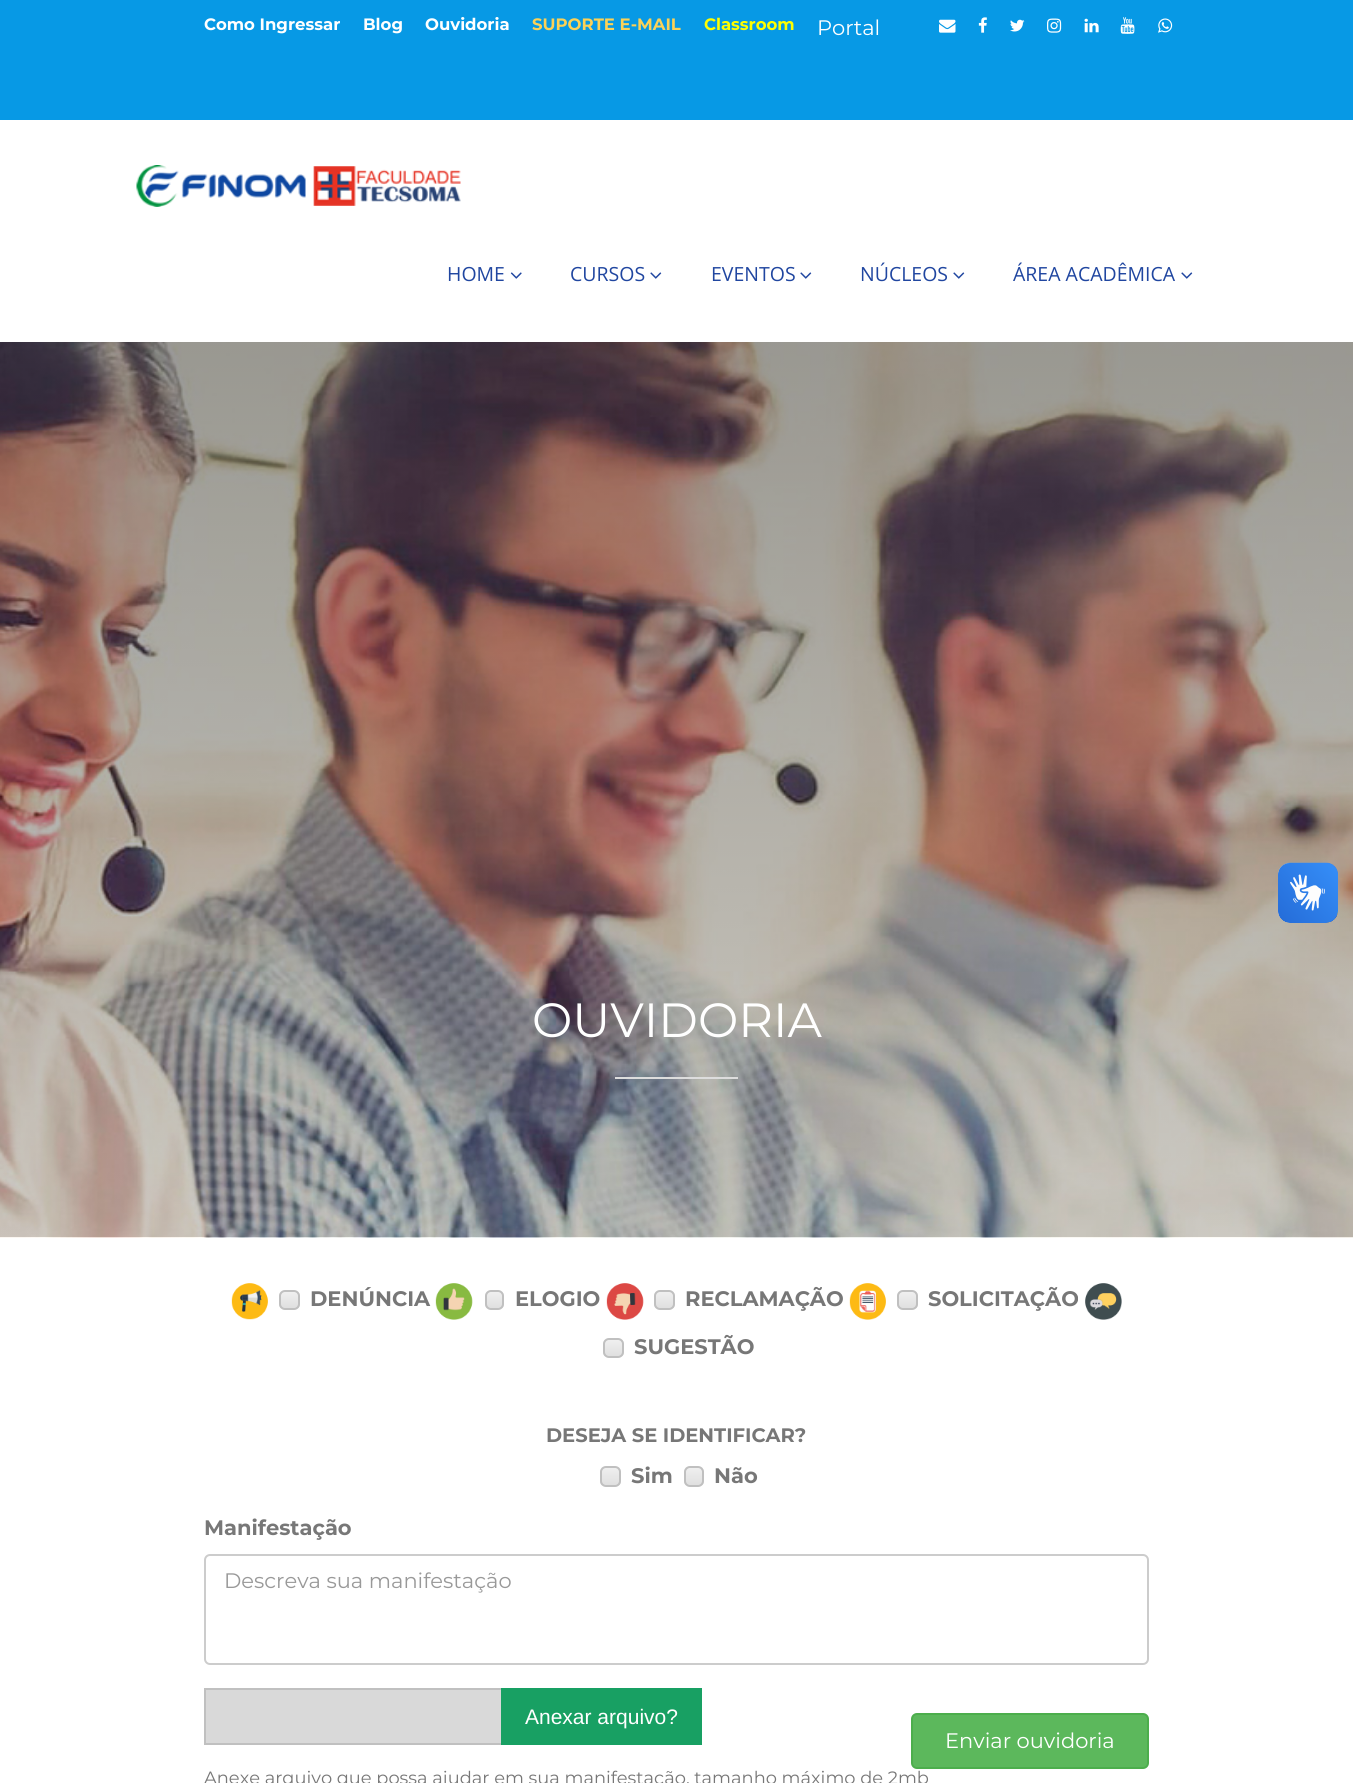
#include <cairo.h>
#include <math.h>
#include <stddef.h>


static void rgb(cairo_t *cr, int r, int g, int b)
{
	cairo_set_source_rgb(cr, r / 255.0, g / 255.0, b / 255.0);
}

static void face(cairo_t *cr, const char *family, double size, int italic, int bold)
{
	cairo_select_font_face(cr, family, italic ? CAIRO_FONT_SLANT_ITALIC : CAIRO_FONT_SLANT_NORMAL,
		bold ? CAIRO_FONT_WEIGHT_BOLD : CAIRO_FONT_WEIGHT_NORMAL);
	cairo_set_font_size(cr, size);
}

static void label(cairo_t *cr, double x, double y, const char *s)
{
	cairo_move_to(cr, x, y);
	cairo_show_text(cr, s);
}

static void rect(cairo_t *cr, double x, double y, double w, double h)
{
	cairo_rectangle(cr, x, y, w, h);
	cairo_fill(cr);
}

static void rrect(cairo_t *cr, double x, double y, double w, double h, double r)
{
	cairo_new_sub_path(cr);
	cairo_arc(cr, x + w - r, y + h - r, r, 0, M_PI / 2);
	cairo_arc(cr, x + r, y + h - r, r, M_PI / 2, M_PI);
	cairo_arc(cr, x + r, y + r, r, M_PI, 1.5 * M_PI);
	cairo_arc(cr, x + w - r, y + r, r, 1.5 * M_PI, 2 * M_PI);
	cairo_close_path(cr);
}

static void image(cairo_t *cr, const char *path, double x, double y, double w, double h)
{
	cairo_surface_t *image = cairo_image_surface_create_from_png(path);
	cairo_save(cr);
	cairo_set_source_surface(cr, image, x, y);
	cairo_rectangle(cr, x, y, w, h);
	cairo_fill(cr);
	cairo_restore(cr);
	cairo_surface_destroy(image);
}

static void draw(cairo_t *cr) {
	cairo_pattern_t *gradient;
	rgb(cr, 255, 255, 255);
	cairo_paint(cr);
	rgb(cr, 7, 153, 229);
	rect(cr, 0, 0, 1353, 120);
	face(cr, "Montserrat", 16.5, 0, 1);
	rgb(cr, 255, 255, 255);
	label(cr, 204, 30, "Como Ingressar");
	label(cr, 363, 30, "Blog");
	label(cr, 425, 30, "Ouvidoria");
	rgb(cr, 251, 210, 87);
	label(cr, 532, 30, "SUPORTE E-MAIL");
	rgb(cr, 255, 255, 0);
	label(cr, 704, 30, "Classroom");
	face(cr, "Montserrat", 21, 0, 0);
	rgb(cr, 255, 255, 255);
	label(cr, 817, 35, "Portal");
	image(cr, "image0.png", 939, 19, 17, 14);
	image(cr, "image1.png", 978, 17, 9, 16);
	image(cr, "image2.png", 1010, 19, 15, 13);
	image(cr, "image3.png", 1047, 18, 15, 15);
	image(cr, "image4.png", 1084, 18, 15, 15);
	image(cr, "image5.png", 1120, 17, 15, 17);
	image(cr, "image6.png", 1158, 18, 15, 15);
	image(cr, "image7.png", 136, 165, 325, 42);
	face(cr, "Open Sans", 19.5, 0, 0);
	rgb(cr, 32, 70, 160);
	label(cr, 447, 281, "HOME");
	image(cr, "image8.png", 510, 272, 12, 7);
	label(cr, 570, 281, "CURSOS");
	image(cr, "image9.png", 650, 272, 12, 7);
	label(cr, 711, 281, "EVENTOS");
	image(cr, "image9.png", 800, 272, 12, 7);
	label(cr, 860, 281, "NÚCLEOS");
	image(cr, "image9.png", 953, 272, 12, 7);
	label(cr, 1013, 281, "ÁREA ACADÊMICA");
	image(cr, "image9.png", 1181, 272, 12, 7);
	image(cr, "image10.png", 0, 342, 1353, 896);
	face(cr, "Montserrat", 48, 0, 0);
	rgb(cr, 255, 255, 255);
	label(cr, 532, 1037, "OUVIDORIA");
	rgb(cr, 221, 221, 221);
	rect(cr, 615, 1077, 123, 2);
	image(cr, "image11.png", 231, 1283, 37, 37);
	cairo_save(cr);
	rrect(cr, 279, 1290, 21, 20, 6);
	cairo_clip(cr);
	gradient = cairo_pattern_create_linear(290, 1292, 290, 1308);
	cairo_pattern_add_color_stop_rgba(gradient, 0, 0.941, 0.941, 0.941, 1);
	cairo_pattern_add_color_stop_rgba(gradient, 1, 0.878, 0.878, 0.878, 1);
	cairo_set_source(cr, gradient);
	cairo_pattern_destroy(gradient);
	rect(cr, 279, 1292, 21, 16);
	cairo_restore(cr);
	rrect(cr, 280, 1291, 19, 18, 5);
	rgb(cr, 192, 192, 192);
	cairo_stroke(cr);
	face(cr, "Montserrat", 21, 0, 1);
	rgb(cr, 119, 119, 119);
	label(cr, 310, 1306, "DENÚNCIA");
	image(cr, "image12.png", 435, 1283, 38, 37);
	cairo_save(cr);
	rrect(cr, 485, 1290, 19, 20, 6);
	cairo_clip(cr);
	gradient = cairo_pattern_create_linear(494, 1292, 494, 1308);
	cairo_pattern_add_color_stop_rgba(gradient, 0, 0.941, 0.941, 0.941, 1);
	cairo_pattern_add_color_stop_rgba(gradient, 1, 0.878, 0.878, 0.878, 1);
	cairo_set_source(cr, gradient);
	cairo_pattern_destroy(gradient);
	rect(cr, 485, 1292, 19, 16);
	cairo_restore(cr);
	rrect(cr, 486, 1291, 17, 18, 5);
	rgb(cr, 192, 192, 192);
	cairo_stroke(cr);
	rgb(cr, 119, 119, 119);
	label(cr, 515, 1306, "ELOGIO");
	image(cr, "image13.png", 606, 1283, 38, 37);
	cairo_save(cr);
	rrect(cr, 654, 1290, 21, 20, 6);
	cairo_clip(cr);
	gradient = cairo_pattern_create_linear(665, 1292, 665, 1308);
	cairo_pattern_add_color_stop_rgba(gradient, 0, 0.941, 0.941, 0.941, 1);
	cairo_pattern_add_color_stop_rgba(gradient, 1, 0.878, 0.878, 0.878, 1);
	cairo_set_source(cr, gradient);
	cairo_pattern_destroy(gradient);
	rect(cr, 654, 1292, 21, 16);
	cairo_restore(cr);
	rrect(cr, 655, 1291, 19, 18, 5);
	rgb(cr, 192, 192, 192);
	cairo_stroke(cr);
	rgb(cr, 119, 119, 119);
	label(cr, 685, 1306, "RECLAMAÇÃO");
	image(cr, "image14.png", 849, 1283, 37, 37);
	cairo_save(cr);
	rrect(cr, 897, 1290, 21, 20, 6);
	cairo_clip(cr);
	gradient = cairo_pattern_create_linear(908, 1292, 908, 1308);
	cairo_pattern_add_color_stop_rgba(gradient, 0, 0.941, 0.941, 0.941, 1);
	cairo_pattern_add_color_stop_rgba(gradient, 1, 0.878, 0.878, 0.878, 1);
	cairo_set_source(cr, gradient);
	cairo_pattern_destroy(gradient);
	rect(cr, 897, 1292, 21, 16);
	cairo_restore(cr);
	rrect(cr, 898, 1291, 19, 18, 5);
	rgb(cr, 192, 192, 192);
	cairo_stroke(cr);
	rgb(cr, 119, 119, 119);
	label(cr, 928, 1306, "SOLICITAÇÃO");
	image(cr, "image15.png", 1085, 1283, 37, 37);
	cairo_save(cr);
	rrect(cr, 603, 1338, 21, 20, 6);
	cairo_clip(cr);
	gradient = cairo_pattern_create_linear(614, 1340, 614, 1356);
	cairo_pattern_add_color_stop_rgba(gradient, 0, 0.941, 0.941, 0.941, 1);
	cairo_pattern_add_color_stop_rgba(gradient, 1, 0.878, 0.878, 0.878, 1);
	cairo_set_source(cr, gradient);
	cairo_pattern_destroy(gradient);
	rect(cr, 603, 1340, 21, 16);
	cairo_restore(cr);
	rrect(cr, 604, 1339, 19, 18, 5);
	rgb(cr, 192, 192, 192);
	cairo_stroke(cr);
	rgb(cr, 119, 119, 119);
	label(cr, 634, 1354, "SUGESTÃO");
	face(cr, "Montserrat", 19.5, 0, 1);
	label(cr, 546, 1442, "DESEJA SE IDENTIFICAR?");
	cairo_save(cr);
	rrect(cr, 600, 1466, 21, 21, 6);
	cairo_clip(cr);
	gradient = cairo_pattern_create_linear(611, 1467, 611, 1485);
	cairo_pattern_add_color_stop_rgba(gradient, 0, 0.941, 0.941, 0.941, 1);
	cairo_pattern_add_color_stop_rgba(gradient, 1, 0.878, 0.878, 0.878, 1);
	cairo_set_source(cr, gradient);
	cairo_pattern_destroy(gradient);
	rect(cr, 600, 1467, 21, 18);
	cairo_restore(cr);
	rrect(cr, 601, 1467, 19, 19, 5);
	rgb(cr, 192, 192, 192);
	cairo_stroke(cr);
	face(cr, "Montserrat", 21, 0, 1);
	rgb(cr, 119, 119, 119);
	label(cr, 631, 1483, "Sim");
	cairo_save(cr);
	rrect(cr, 684, 1466, 20, 21, 6);
	cairo_clip(cr);
	gradient = cairo_pattern_create_linear(694, 1467, 694, 1485);
	cairo_pattern_add_color_stop_rgba(gradient, 0, 0.941, 0.941, 0.941, 1);
	cairo_pattern_add_color_stop_rgba(gradient, 1, 0.878, 0.878, 0.878, 1);
	cairo_set_source(cr, gradient);
	cairo_pattern_destroy(gradient);
	rect(cr, 684, 1467, 20, 18);
	cairo_restore(cr);
	rrect(cr, 685, 1467, 18, 19, 5);
	rgb(cr, 192, 192, 192);
	cairo_stroke(cr);
	rgb(cr, 119, 119, 119);
	label(cr, 714, 1483, "Não");
	label(cr, 204, 1535, "Manifestação");
	rrect(cr, 205, 1555, 943, 109, 5);
	rgb(cr, 204, 204, 204);
	cairo_stroke(cr);
	face(cr, "Montserrat", 21, 0, 0);
	rgb(cr, 153, 153, 153);
	label(cr, 224, 1588, "Descreva sua manifestação");
	rgb(cr, 217, 217, 217);
	rect(cr, 206, 1690, 295, 53);
	cairo_rectangle(cr, 205, 1689, 298, 55);
	rgb(cr, 192, 192, 192);
	cairo_stroke(cr);
	rgb(cr, 24, 160, 99);
	rect(cr, 501, 1688, 201, 57);
	face(cr, "Liberation Sans", 21, 0, 0);
	rgb(cr, 255, 255, 255);
	label(cr, 525, 1724, "Anexar arquivo?");
	face(cr, "Montserrat", 17.85, 0, 0);
	rgb(cr, 119, 119, 119);
	label(cr, 204, 1784, "Anexe arquivo que possa ajudar em sua manifestação, tamanho máximo de 2mb");
	rgb(cr, 92, 184, 92);
	rrect(cr, 912, 1714, 236, 54, 5);
	cairo_fill_preserve(cr);
	rgb(cr, 76, 174, 76);
	cairo_stroke(cr);
	face(cr, "Montserrat", 21, 0, 0);
	rgb(cr, 255, 255, 255);
	label(cr, 945, 1748, "Enviar ouvidoria");
	image(cr, "image16.png", 1278, 862, 60, 61);
	image(cr, "image17.png", 1278, 863, 60, 60);
}

int main(void) {
	cairo_surface_t *surface = cairo_image_surface_create(CAIRO_FORMAT_RGB24, 1353, 1783);
	cairo_t *cr = cairo_create(surface);
	cairo_font_options_t *options = cairo_font_options_create();
	cairo_font_options_set_hint_metrics(options, CAIRO_HINT_METRICS_OFF);
	cairo_font_options_set_hint_style(options, CAIRO_HINT_STYLE_NONE);
	cairo_set_font_options(cr, options);
	cairo_set_miter_limit(cr, 4);
	draw(cr);
	cairo_surface_write_to_png(surface, "render.png");
	cairo_font_options_destroy(options);
	cairo_destroy(cr);
	cairo_surface_destroy(surface);
	return 0;
}
